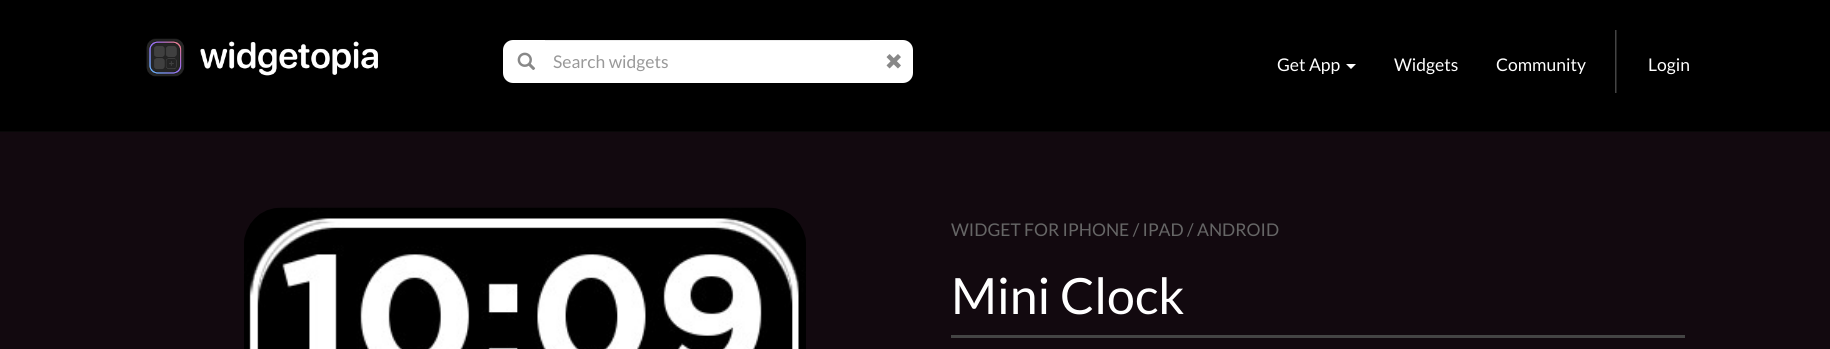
#include <cairo.h>
#include <math.h>
#include <stddef.h>


static void rgb(cairo_t *cr, int r, int g, int b)
{
	cairo_set_source_rgb(cr, r / 255.0, g / 255.0, b / 255.0);
}

static void face(cairo_t *cr, const char *family, double size, int italic, int bold)
{
	cairo_select_font_face(cr, family, italic ? CAIRO_FONT_SLANT_ITALIC : CAIRO_FONT_SLANT_NORMAL,
		bold ? CAIRO_FONT_WEIGHT_BOLD : CAIRO_FONT_WEIGHT_NORMAL);
	cairo_set_font_size(cr, size);
}

static void label(cairo_t *cr, double x, double y, const char *s)
{
	cairo_move_to(cr, x, y);
	cairo_show_text(cr, s);
}

static void rect(cairo_t *cr, double x, double y, double w, double h)
{
	cairo_rectangle(cr, x, y, w, h);
	cairo_fill(cr);
}

static void image(cairo_t *cr, const char *path, double x, double y, double w, double h)
{
	cairo_surface_t *image = cairo_image_surface_create_from_png(path);
	cairo_save(cr);
	cairo_set_source_surface(cr, image, x, y);
	cairo_rectangle(cr, x, y, w, h);
	cairo_fill(cr);
	cairo_restore(cr);
	cairo_surface_destroy(image);
}

static void draw(cairo_t *cr) {
	rgb(cr, 18, 9, 15);
	cairo_paint(cr);
	rgb(cr, 0, 0, 0);
	rect(cr, 0, 0, 1830, 131);
	rgb(cr, 8, 8, 8);
	rect(cr, 0, 131, 1830, 1);
	image(cr, "image0.png", 146, 38, 232, 39);
	rgb(cr, 255, 255, 255);
	cairo_new_path(cr);
	cairo_move_to(cr, 513, 40);
	cairo_line_to(cr, 545, 40);
	cairo_line_to(cr, 545, 83);
	cairo_line_to(cr, 513, 83);
	cairo_curve_to(cr, 507.5, 83, 503, 78.5, 503, 73);
	cairo_line_to(cr, 503, 50);
	cairo_curve_to(cr, 503, 44.5, 507.5, 40, 513, 40);
	cairo_close_path(cr);
	cairo_fill(cr);
	image(cr, "image1.png", 517, 52, 19, 18);
	rect(cr, 545, 41, 325, 42);
	rgb(cr, 236, 236, 236);
	rect(cr, 545, 40, 325, 1);
	face(cr, "Lato", 17.5, 0, 0);
	rgb(cr, 153, 153, 153);
	label(cr, 553, 68, "Search widgets");
	rgb(cr, 255, 255, 255);
	cairo_new_path(cr);
	cairo_move_to(cr, 870, 40);
	cairo_line_to(cr, 903, 40);
	cairo_curve_to(cr, 908.5, 40, 913, 44.5, 913, 50);
	cairo_line_to(cr, 913, 73);
	cairo_curve_to(cr, 913, 78.5, 908.5, 83, 903, 83);
	cairo_line_to(cr, 870, 83);
	cairo_close_path(cr);
	cairo_fill(cr);
	image(cr, "image2.png", 886, 54, 15, 15);
	label(cr, 1277, 71, "Get App");
	cairo_new_path(cr);
	cairo_move_to(cr, 1346, 64);
	cairo_line_to(cr, 1356, 64);
	cairo_line_to(cr, 1351, 69);
	cairo_close_path(cr);
	cairo_fill(cr);
	label(cr, 1394, 71, "Widgets");
	label(cr, 1496, 71, "Community");
	rgb(cr, 34, 34, 34);
	rect(cr, 1616, 30, 1, 63);
	rgb(cr, 68, 68, 68);
	rect(cr, 1615, 30, 1, 63);
	rgb(cr, 255, 255, 255);
	label(cr, 1648, 71, "Login");
	image(cr, "image3.png", 244, 207, 562, 142);
	rgb(cr, 102, 102, 102);
	label(cr, 951, 236, "WIDGET FOR IPHONE / IPAD / ANDROID");
	face(cr, "Lato", 50, 0, 0);
	rgb(cr, 255, 255, 255);
	label(cr, 951, 314, "Mini Clock");
	rgb(cr, 68, 68, 68);
	rect(cr, 951, 335, 734, 3);
}

int main(void) {
	cairo_surface_t *surface = cairo_image_surface_create(CAIRO_FORMAT_RGB24, 1830, 349);
	cairo_t *cr = cairo_create(surface);
	cairo_font_options_t *options = cairo_font_options_create();
	cairo_font_options_set_hint_metrics(options, CAIRO_HINT_METRICS_OFF);
	cairo_font_options_set_hint_style(options, CAIRO_HINT_STYLE_NONE);
	cairo_set_font_options(cr, options);
	cairo_set_miter_limit(cr, 4);
	draw(cr);
	cairo_surface_write_to_png(surface, "render.png");
	cairo_font_options_destroy(options);
	cairo_destroy(cr);
	cairo_surface_destroy(surface);
	return 0;
}
